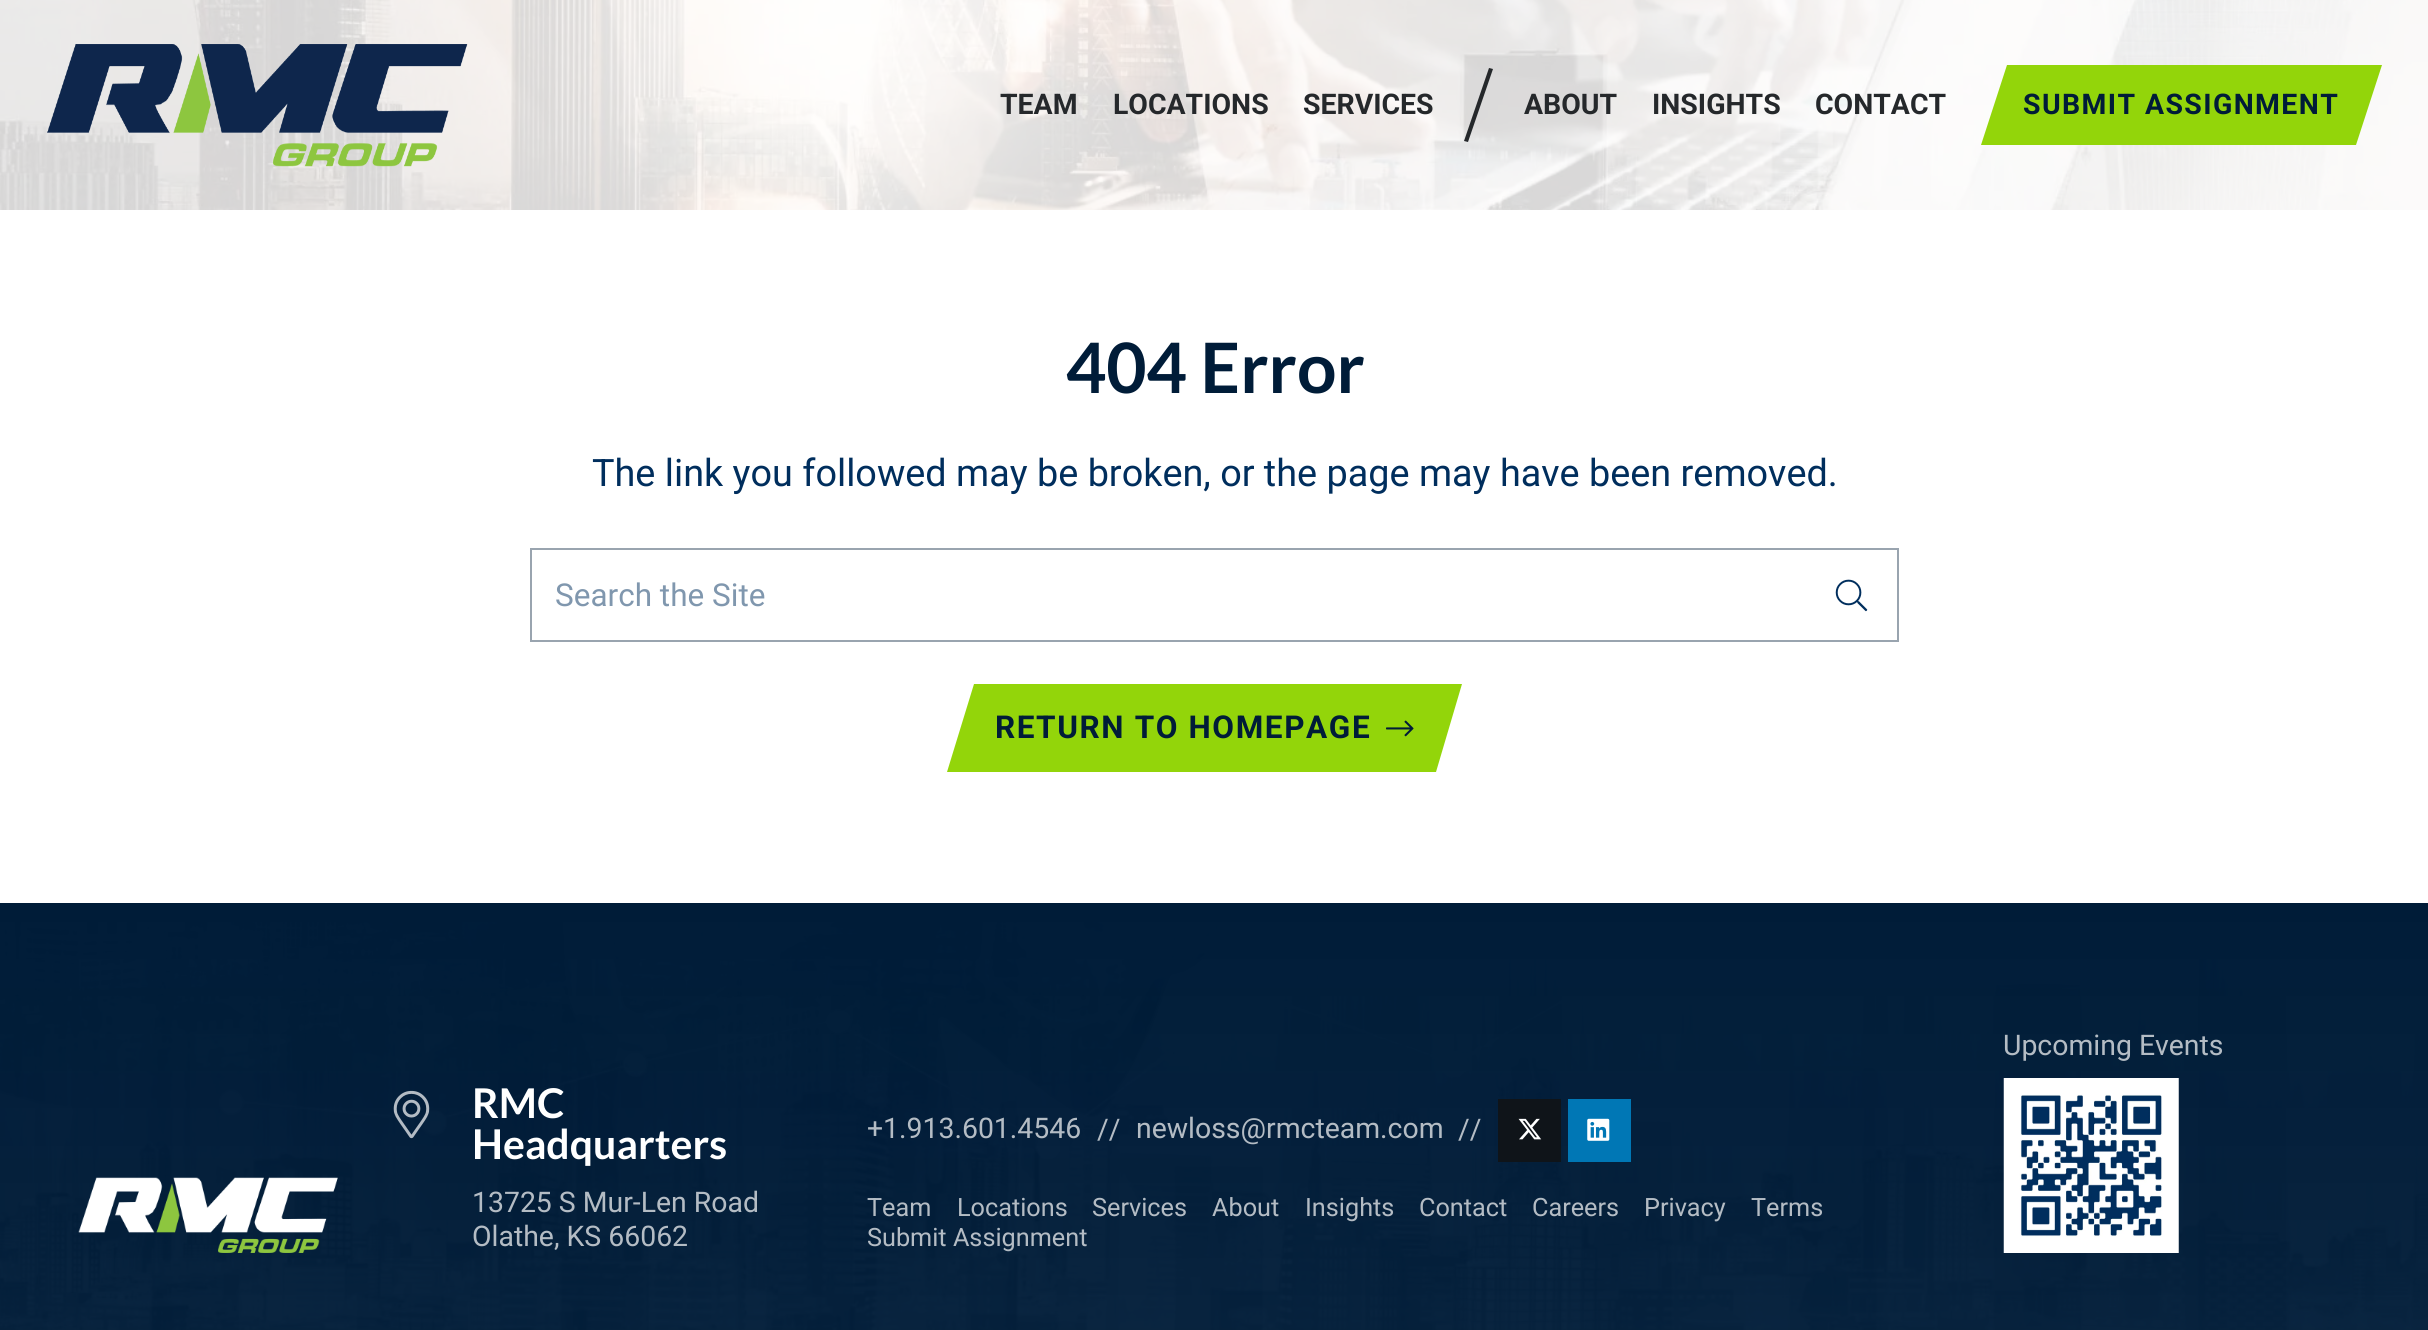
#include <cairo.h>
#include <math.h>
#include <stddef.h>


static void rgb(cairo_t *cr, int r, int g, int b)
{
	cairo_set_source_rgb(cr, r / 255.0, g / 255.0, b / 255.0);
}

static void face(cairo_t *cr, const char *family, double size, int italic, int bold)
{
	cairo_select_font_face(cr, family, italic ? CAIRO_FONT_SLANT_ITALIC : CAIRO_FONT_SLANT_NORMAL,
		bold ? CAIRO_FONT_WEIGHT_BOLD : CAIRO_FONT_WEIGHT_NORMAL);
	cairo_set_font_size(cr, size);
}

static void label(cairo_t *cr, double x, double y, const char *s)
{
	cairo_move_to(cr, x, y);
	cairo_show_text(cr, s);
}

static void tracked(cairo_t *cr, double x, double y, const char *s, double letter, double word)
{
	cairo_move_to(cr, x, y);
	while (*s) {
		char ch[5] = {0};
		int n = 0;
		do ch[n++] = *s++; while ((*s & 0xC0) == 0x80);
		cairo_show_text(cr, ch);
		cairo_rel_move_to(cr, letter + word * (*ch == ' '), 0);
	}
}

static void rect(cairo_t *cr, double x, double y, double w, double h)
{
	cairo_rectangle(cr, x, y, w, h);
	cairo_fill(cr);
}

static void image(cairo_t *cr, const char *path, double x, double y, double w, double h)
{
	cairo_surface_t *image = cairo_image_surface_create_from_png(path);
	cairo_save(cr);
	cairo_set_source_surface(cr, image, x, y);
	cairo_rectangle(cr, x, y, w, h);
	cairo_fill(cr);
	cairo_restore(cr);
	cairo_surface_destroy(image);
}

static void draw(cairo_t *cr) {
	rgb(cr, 255, 255, 255);
	cairo_paint(cr);
	image(cr, "image1.png", 0, 0, 2428, 210);
	image(cr, "image0.png", 47, 44, 421, 123);
	face(cr, "Roboto", 28.4, 0, 1);
	rgb(cr, 37, 40, 43);
	label(cr, 1000, 114, "TEAM");
	label(cr, 1113, 114, "LOCATIONS");
	label(cr, 1303, 114, "SERVICES");
	cairo_new_path(cr);
	cairo_move_to(cr, 1489, 68);
	cairo_line_to(cr, 1493, 69);
	cairo_line_to(cr, 1468, 142);
	cairo_line_to(cr, 1464, 141);
	cairo_close_path(cr);
	cairo_fill(cr);
	label(cr, 1524, 114, "ABOUT");
	label(cr, 1652, 114, "INSIGHTS");
	label(cr, 1815, 114, "CONTACT");
	rgb(cr, 147, 213, 10);
	cairo_new_path(cr);
	cairo_move_to(cr, 1981, 145);
	cairo_line_to(cr, 2007, 65);
	cairo_line_to(cr, 2382, 65);
	cairo_line_to(cr, 2356, 145);
	cairo_close_path(cr);
	cairo_fill(cr);
	rgb(cr, 0, 28, 56);
	tracked(cr, 2023, 114, "SUBMIT ASSIGNMENT", 1.4, 0);
	face(cr, "Lato", 69.5, 0, 1);
	label(cr, 1066, 393, "404 Error");
	face(cr, "Roboto", 37.8, 0, 0);
	rgb(cr, 0, 46, 93);
	label(cr, 592, 486, "The link you followed may be broken, or the page may have been removed.");
	cairo_rectangle(cr, 531, 549, 1367, 92);
	rgb(cr, 153, 164, 175);
	cairo_stroke(cr);
	face(cr, "Roboto", 31.5, 0, 0);
	rgb(cr, 128, 151, 174);
	label(cr, 555, 606, "Search the Site");
	image(cr, "image2.png", 1835, 579, 33, 33);
	rgb(cr, 147, 213, 10);
	cairo_new_path(cr);
	cairo_move_to(cr, 1462, 684);
	cairo_line_to(cr, 1436, 772);
	cairo_line_to(cr, 947, 772);
	cairo_line_to(cr, 974, 684);
	cairo_close_path(cr);
	cairo_fill(cr);
	face(cr, "Roboto", 31.5, 0, 1);
	rgb(cr, 0, 28, 56);
	tracked(cr, 995, 738, "RETURN TO HOMEPAGE", 1.6, 0);
	image(cr, "image3.png", 1386, 720, 28, 17);
	image(cr, "image4.png", 0, 903, 2428, 427);
	face(cr, "Roboto", 28.4, 0, 0);
	rgb(cr, 180, 188, 196);
	label(cr, 2003, 1055, "Upcoming Events");
	image(cr, "image5.png", 2003, 1078, 176, 175);
	image(cr, "image6.png", 78, 1177, 260, 76);
	image(cr, "image7.png", 393, 1090, 37, 49);
	face(cr, "Lato", 41, 0, 1);
	rgb(cr, 255, 255, 255);
	label(cr, 472, 1118, "RMC");
	label(cr, 472, 1159, "Headquarters");
	face(cr, "Roboto", 28.4, 0, 0);
	rgb(cr, 180, 188, 196);
	label(cr, 472, 1212, "13725 S Mur-Len Road");
	label(cr, 472, 1246, "Olathe, KS 66062");
	label(cr, 867, 1138, "+1.913.601.4546");
	label(cr, 1097, 1139, "//");
	label(cr, 1136, 1138, "newloss@rmcteam.com");
	label(cr, 1458, 1139, "//");
	rgb(cr, 15, 20, 25);
	rect(cr, 1498, 1099, 63, 63);
	image(cr, "image8.png", 1518, 1118, 24, 22);
	rgb(cr, 0, 119, 181);
	rect(cr, 1568, 1099, 63, 63);
	image(cr, "image9.png", 1587, 1118, 23, 23);
	face(cr, "Roboto", 25.25, 0, 0);
	rgb(cr, 180, 188, 196);
	label(cr, 867, 1216, "Team");
	label(cr, 957, 1216, "Locations");
	label(cr, 1092, 1216, "Services");
	label(cr, 1212, 1216, "About");
	label(cr, 1305, 1216, "Insights");
	label(cr, 1419, 1216, "Contact");
	label(cr, 1532, 1216, "Careers");
	label(cr, 1644, 1216, "Privacy");
	label(cr, 1751, 1216, "Terms");
	label(cr, 867, 1246, "Submit Assignment");
}

int main(void) {
	cairo_surface_t *surface = cairo_image_surface_create(CAIRO_FORMAT_RGB24, 2428, 1330);
	cairo_t *cr = cairo_create(surface);
	cairo_font_options_t *options = cairo_font_options_create();
	cairo_font_options_set_hint_metrics(options, CAIRO_HINT_METRICS_OFF);
	cairo_font_options_set_hint_style(options, CAIRO_HINT_STYLE_NONE);
	cairo_set_font_options(cr, options);
	cairo_set_miter_limit(cr, 4);
	draw(cr);
	cairo_surface_write_to_png(surface, "render.png");
	cairo_font_options_destroy(options);
	cairo_destroy(cr);
	cairo_surface_destroy(surface);
	return 0;
}
